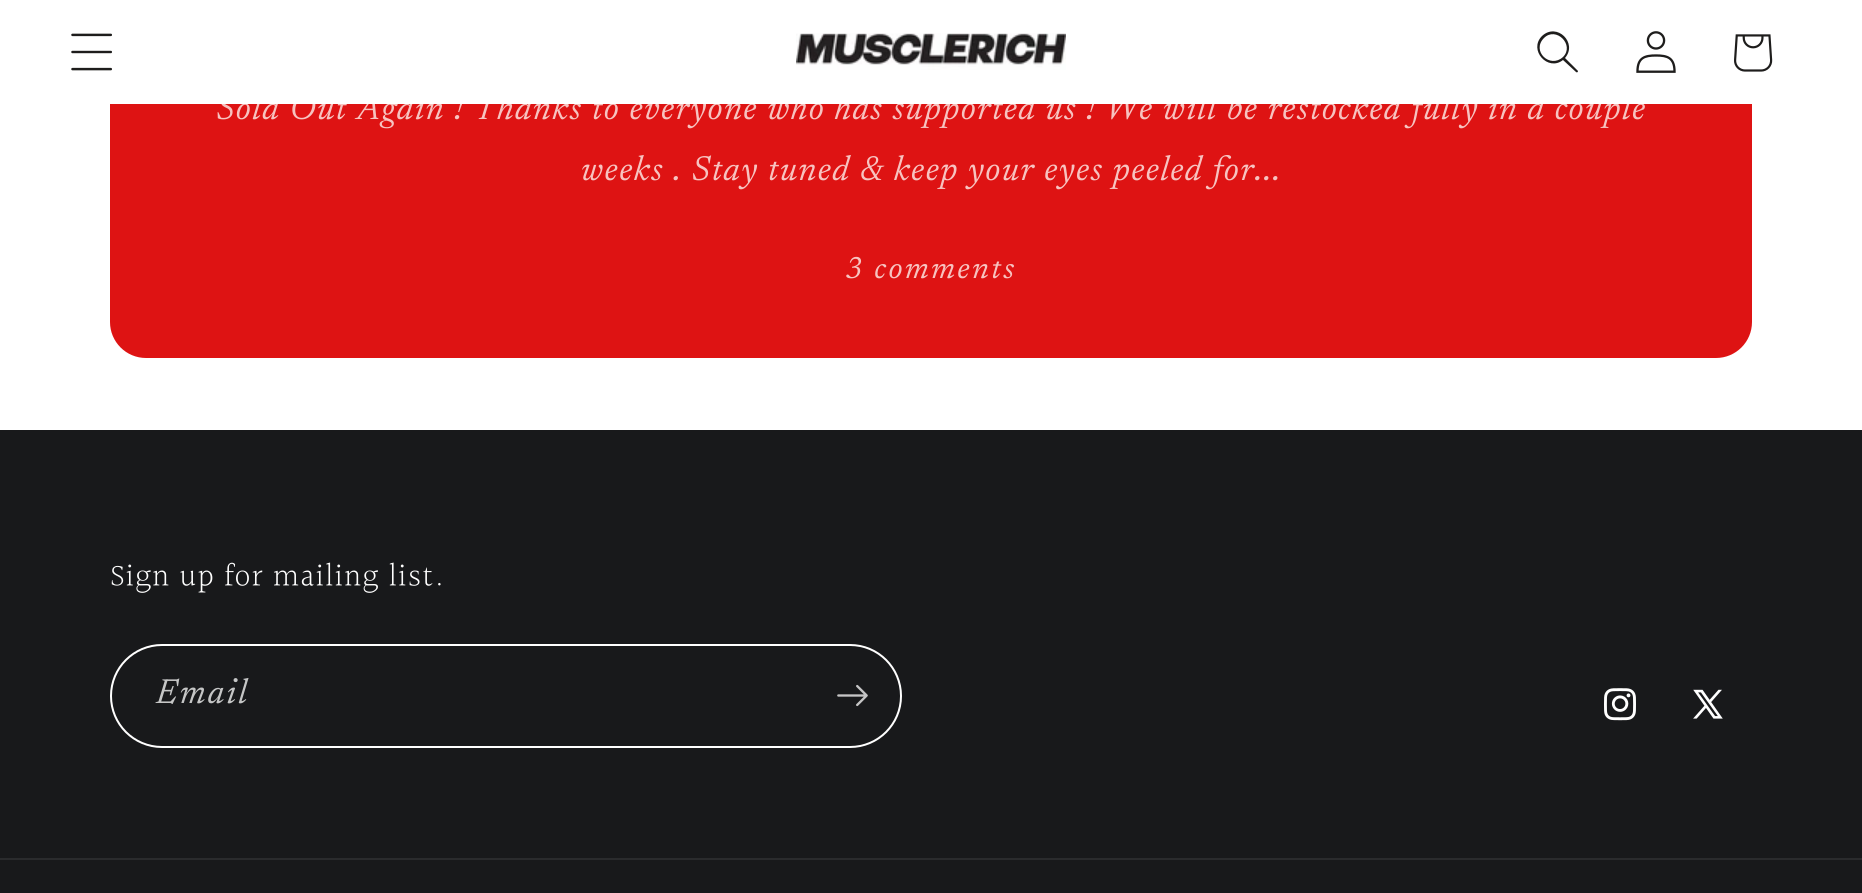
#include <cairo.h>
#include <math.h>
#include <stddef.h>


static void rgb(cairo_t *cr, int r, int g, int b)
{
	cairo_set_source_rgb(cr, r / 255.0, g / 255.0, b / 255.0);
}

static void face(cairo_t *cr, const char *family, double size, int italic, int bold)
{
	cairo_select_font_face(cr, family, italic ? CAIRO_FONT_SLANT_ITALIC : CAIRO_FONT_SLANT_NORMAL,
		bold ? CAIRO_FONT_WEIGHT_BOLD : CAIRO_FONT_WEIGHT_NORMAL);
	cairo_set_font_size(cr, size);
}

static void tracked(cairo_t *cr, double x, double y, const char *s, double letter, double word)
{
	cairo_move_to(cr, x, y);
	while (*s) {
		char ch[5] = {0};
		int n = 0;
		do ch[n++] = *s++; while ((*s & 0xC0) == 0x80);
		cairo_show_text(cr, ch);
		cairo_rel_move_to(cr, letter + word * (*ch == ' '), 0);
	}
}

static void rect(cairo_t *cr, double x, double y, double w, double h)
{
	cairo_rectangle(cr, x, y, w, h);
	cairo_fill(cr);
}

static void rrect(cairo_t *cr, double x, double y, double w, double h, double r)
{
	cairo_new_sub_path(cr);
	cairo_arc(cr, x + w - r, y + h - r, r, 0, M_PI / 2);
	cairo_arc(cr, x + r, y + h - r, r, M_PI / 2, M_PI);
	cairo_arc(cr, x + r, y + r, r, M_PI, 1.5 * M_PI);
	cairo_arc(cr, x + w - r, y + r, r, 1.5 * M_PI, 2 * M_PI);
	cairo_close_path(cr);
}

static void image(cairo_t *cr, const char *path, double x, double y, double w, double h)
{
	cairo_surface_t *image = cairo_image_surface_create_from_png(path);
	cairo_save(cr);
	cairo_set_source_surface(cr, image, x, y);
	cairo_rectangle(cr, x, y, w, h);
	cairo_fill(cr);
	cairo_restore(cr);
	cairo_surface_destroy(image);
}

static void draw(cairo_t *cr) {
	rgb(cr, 255, 255, 255);
	cairo_paint(cr);
	rgb(cr, 222, 19, 19);
	rrect(cr, 110, -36, 1642, 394, 36);
	cairo_fill(cr);
	face(cr, "Newsreader", 35.2, 1, 0);
	rgb(cr, 247, 195, 192);
	tracked(cr, 216, 119, "Sold Out Again ! Thanks to everyone who has supported us ! We will be restocked fully in a couple", 1.32, 0);
	rgb(cr, 255, 255, 255);
	rect(cr, 110, 0, 1642, 104);
	image(cr, "image0.png", 71, 33, 41, 38);
	image(cr, "image1.png", 796, 33, 270, 37);
	rgb(cr, 30, 29, 28);
	cairo_set_fill_rule(cr, CAIRO_FILL_RULE_EVEN_ODD);
	cairo_new_path(cr);
	cairo_move_to(cr, 1563, 57);
	cairo_curve_to(cr, 1550, 69, 1531, 51, 1544, 38);
	cairo_curve_to(cr, 1556, 26, 1575, 45, 1563, 57);
	cairo_move_to(cr, 1563, 60);
	cairo_curve_to(cr, 1548, 72, 1528, 50, 1542, 36);
	cairo_curve_to(cr, 1557, 22, 1578, 43, 1565, 58);
	cairo_line_to(cr, 1578, 71);
	cairo_curve_to(cr, 1578, 72, 1577, 73, 1576, 72);
	cairo_close_path(cr);
	cairo_fill(cr);
	image(cr, "image2.png", 1636, 31, 40, 42);
	image(cr, "image3.png", 1734, 34, 39, 38);
	rgb(cr, 247, 195, 192);
	tracked(cr, 581, 180, "weeks . Stay tuned & keep your eyes peeled for...", 1.32, 0);
	face(cr, "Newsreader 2", 30.75, 1, 0);
	tracked(cr, 845, 278, "3 comments", 2.25, 0);
	rgb(cr, 24, 25, 27);
	rect(cr, 0, 430, 1862, 463);
	face(cr, "Halant Light", 32, 0, 0);
	rgb(cr, 255, 255, 255);
	tracked(cr, 110, 587, "Sign up for mailing list.", 1.2, 0);
	rrect(cr, 111, 645, 790, 102, 51);
	cairo_stroke(cr);
	face(cr, "Newsreader", 35.2, 1, 0);
	rgb(cr, 197, 198, 198);
	tracked(cr, 156, 703, "Email", 2.25, 0);
	image(cr, "image4.png", 837, 684, 31, 23);
	image(cr, "image5.png", 1604, 688, 32, 33);
	image(cr, "image6.png", 1693, 689, 30, 30);
	rgb(cr, 42, 43, 45);
	rect(cr, 0, 858, 1862, 2);
}

int main(void) {
	cairo_surface_t *surface = cairo_image_surface_create(CAIRO_FORMAT_RGB24, 1862, 893);
	cairo_t *cr = cairo_create(surface);
	cairo_font_options_t *options = cairo_font_options_create();
	cairo_font_options_set_hint_metrics(options, CAIRO_HINT_METRICS_OFF);
	cairo_font_options_set_hint_style(options, CAIRO_HINT_STYLE_NONE);
	cairo_set_font_options(cr, options);
	cairo_set_miter_limit(cr, 4);
	draw(cr);
	cairo_surface_write_to_png(surface, "render.png");
	cairo_font_options_destroy(options);
	cairo_destroy(cr);
	cairo_surface_destroy(surface);
	return 0;
}
